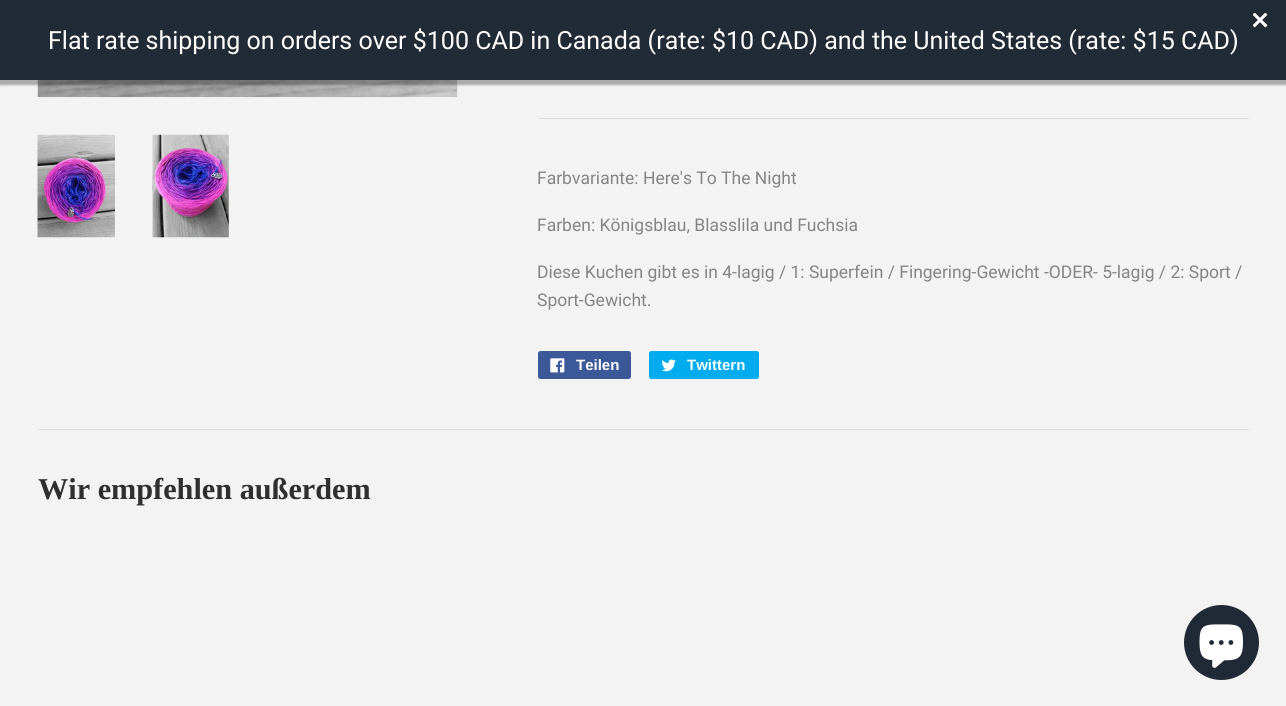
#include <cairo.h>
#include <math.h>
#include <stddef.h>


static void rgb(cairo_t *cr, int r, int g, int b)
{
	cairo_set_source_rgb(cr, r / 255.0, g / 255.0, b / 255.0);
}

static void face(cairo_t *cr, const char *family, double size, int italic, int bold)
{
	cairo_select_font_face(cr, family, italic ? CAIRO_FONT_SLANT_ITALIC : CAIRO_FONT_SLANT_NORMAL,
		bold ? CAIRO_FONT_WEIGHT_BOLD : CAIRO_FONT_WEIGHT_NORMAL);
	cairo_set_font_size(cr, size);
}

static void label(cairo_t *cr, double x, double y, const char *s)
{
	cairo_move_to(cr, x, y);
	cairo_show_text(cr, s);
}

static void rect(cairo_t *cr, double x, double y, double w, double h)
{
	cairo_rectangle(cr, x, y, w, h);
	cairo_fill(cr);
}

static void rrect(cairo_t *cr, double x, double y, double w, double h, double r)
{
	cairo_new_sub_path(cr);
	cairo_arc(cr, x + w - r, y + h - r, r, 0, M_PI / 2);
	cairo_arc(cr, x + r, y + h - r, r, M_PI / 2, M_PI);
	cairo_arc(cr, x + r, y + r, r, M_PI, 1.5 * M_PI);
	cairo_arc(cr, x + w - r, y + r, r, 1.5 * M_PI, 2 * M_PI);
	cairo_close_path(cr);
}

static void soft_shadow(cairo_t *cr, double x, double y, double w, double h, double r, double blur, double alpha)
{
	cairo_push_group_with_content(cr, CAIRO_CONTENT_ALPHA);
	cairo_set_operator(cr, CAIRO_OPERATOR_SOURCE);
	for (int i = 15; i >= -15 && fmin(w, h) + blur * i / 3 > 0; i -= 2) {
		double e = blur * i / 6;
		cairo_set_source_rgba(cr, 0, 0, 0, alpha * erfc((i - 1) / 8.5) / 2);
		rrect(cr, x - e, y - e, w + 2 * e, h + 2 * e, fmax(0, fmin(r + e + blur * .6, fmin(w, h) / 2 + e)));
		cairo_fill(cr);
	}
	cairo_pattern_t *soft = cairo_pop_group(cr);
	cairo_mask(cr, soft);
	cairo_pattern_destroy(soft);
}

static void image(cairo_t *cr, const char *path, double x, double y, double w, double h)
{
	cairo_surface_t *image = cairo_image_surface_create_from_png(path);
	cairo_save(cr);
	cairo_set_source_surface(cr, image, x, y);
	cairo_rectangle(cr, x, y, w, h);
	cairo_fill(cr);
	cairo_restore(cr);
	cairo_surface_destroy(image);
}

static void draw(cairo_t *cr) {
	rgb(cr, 243, 243, 243);
	cairo_paint(cr);
	image(cr, "image1.png", 37, 80, 421, 18);
	rgb(cr, 0, 0, 0);
	soft_shadow(cr, -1, 3, 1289, 82, 0, 1, 0.3);
	rgb(cr, 33, 43, 53);
	rect(cr, 0, 0, 1286, 80);
	image(cr, "image0.png", 1253, 13, 15, 15);
	face(cr, "Roboto", 25, 0, 0);
	rgb(cr, 255, 255, 255);
	label(cr, 48, 49, "Flat rate shipping on orders over $100 CAD in Canada (rate: $10 CAD) and the United States (rate: $15 CAD)");
	image(cr, "image2.png", 37, 134, 78, 104);
	image(cr, "image3.png", 152, 134, 77, 104);
	rgb(cr, 222, 222, 222);
	rect(cr, 538, 118, 711, 1);
	face(cr, "Roboto", 17.5, 0, 0);
	rgb(cr, 133, 133, 133);
	label(cr, 537, 184, "Farbvariante: Here's To The Night");
	label(cr, 537, 231, "Farben: Königsblau, Blasslila und Fuchsia");
	label(cr, 537, 278, "Diese Kuchen gibt es in 4-lagig / 1: Superfein / Fingering-Gewicht -ODER- 5-lagig / 2: Sport /");
	label(cr, 537, 306, "Sport-Gewicht.");
	rgb(cr, 59, 89, 152);
	rrect(cr, 538, 351, 93, 28, 2.5);
	cairo_fill(cr);
	image(cr, "image4.png", 550, 358, 15, 15);
	face(cr, "Liberation Sans", 15, 0, 1);
	rgb(cr, 255, 255, 255);
	label(cr, 576, 370, "Teilen");
	rgb(cr, 0, 172, 237);
	rrect(cr, 649, 351, 110, 28, 2.5);
	cairo_fill(cr);
	image(cr, "image5.png", 661, 359, 15, 13);
	rgb(cr, 255, 255, 255);
	label(cr, 687, 370, "Twittern");
	rgb(cr, 222, 222, 222);
	rect(cr, 38, 429, 1211, 1);
	face(cr, "Liberation Serif", 30.25, 0, 1);
	rgb(cr, 47, 47, 47);
	label(cr, 38, 499, "Wir empfehlen außerdem");
	rgb(cr, 32, 42, 54);
	cairo_new_path(cr);
	cairo_arc(cr, 1221.5, 642.5, 37.5, 0, 2 * M_PI);
	cairo_fill(cr);
	image(cr, "image6.png", 1199, 624, 44, 44);
}

int main(void) {
	cairo_surface_t *surface = cairo_image_surface_create(CAIRO_FORMAT_RGB24, 1286, 706);
	cairo_t *cr = cairo_create(surface);
	cairo_font_options_t *options = cairo_font_options_create();
	cairo_font_options_set_hint_metrics(options, CAIRO_HINT_METRICS_OFF);
	cairo_font_options_set_hint_style(options, CAIRO_HINT_STYLE_NONE);
	cairo_set_font_options(cr, options);
	cairo_set_miter_limit(cr, 4);
	draw(cr);
	cairo_surface_write_to_png(surface, "render.png");
	cairo_font_options_destroy(options);
	cairo_destroy(cr);
	cairo_surface_destroy(surface);
	return 0;
}
